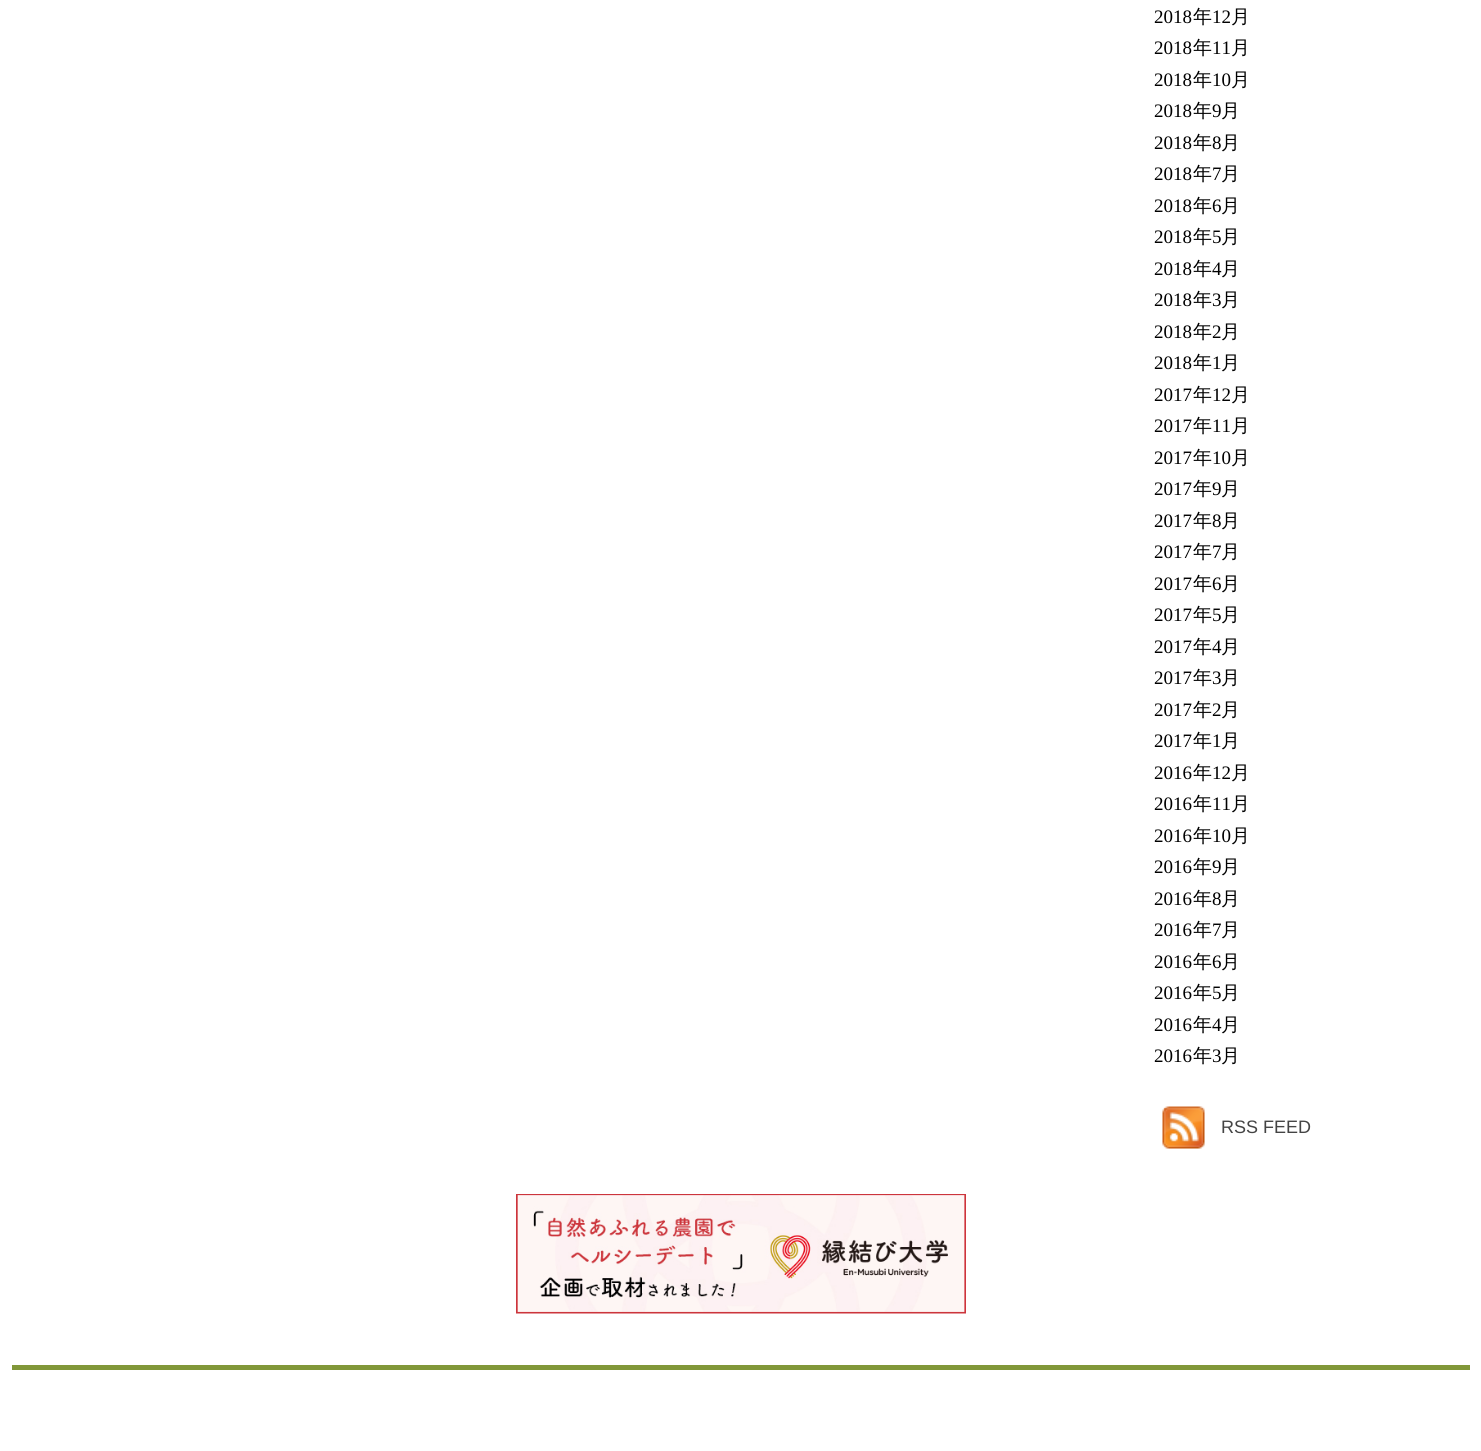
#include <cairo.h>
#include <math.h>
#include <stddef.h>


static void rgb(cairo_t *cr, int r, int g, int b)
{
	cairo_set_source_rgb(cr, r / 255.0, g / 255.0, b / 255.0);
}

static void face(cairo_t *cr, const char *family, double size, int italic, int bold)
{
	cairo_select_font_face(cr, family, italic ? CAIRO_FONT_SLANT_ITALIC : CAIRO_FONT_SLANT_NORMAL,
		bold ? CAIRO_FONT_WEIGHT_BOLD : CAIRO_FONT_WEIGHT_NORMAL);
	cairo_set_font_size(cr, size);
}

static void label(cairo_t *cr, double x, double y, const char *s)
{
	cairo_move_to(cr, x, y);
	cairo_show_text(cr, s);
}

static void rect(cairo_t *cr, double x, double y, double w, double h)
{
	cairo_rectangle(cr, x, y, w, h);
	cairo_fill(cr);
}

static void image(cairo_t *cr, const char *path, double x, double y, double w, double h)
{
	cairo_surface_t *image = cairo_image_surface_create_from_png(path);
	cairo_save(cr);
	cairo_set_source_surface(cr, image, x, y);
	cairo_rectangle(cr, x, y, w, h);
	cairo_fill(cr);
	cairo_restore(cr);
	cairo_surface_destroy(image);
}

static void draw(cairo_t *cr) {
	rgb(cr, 255, 255, 255);
	cairo_paint(cr);
	face(cr, "Liberation Serif", 19, 0, 0);
	rgb(cr, 0, 0, 0);
	label(cr, 1154, 23, "2018");
	face(cr, "WenQuanYi Zen Hei Medium", 19, 0, 0);
	label(cr, 1193, 23, "年");
	face(cr, "Liberation Serif", 19, 0, 0);
	label(cr, 1212, 23, "12");
	face(cr, "WenQuanYi Zen Hei Medium", 19, 0, 0);
	label(cr, 1231, 23, "月");
	face(cr, "Liberation Serif", 19, 0, 0);
	label(cr, 1154, 54, "2018");
	face(cr, "WenQuanYi Zen Hei Medium", 19, 0, 0);
	label(cr, 1193, 54, "年");
	face(cr, "Liberation Serif", 19, 0, 0);
	label(cr, 1212, 54, "11");
	face(cr, "WenQuanYi Zen Hei Medium", 19, 0, 0);
	label(cr, 1231, 54, "月");
	face(cr, "Liberation Serif", 19, 0, 0);
	label(cr, 1154, 86, "2018");
	face(cr, "WenQuanYi Zen Hei Medium", 19, 0, 0);
	label(cr, 1193, 86, "年");
	face(cr, "Liberation Serif", 19, 0, 0);
	label(cr, 1212, 86, "10");
	face(cr, "WenQuanYi Zen Hei Medium", 19, 0, 0);
	label(cr, 1231, 86, "月");
	face(cr, "Liberation Serif", 19, 0, 0);
	label(cr, 1154, 117, "2018");
	face(cr, "WenQuanYi Zen Hei Medium", 19, 0, 0);
	label(cr, 1193, 117, "年");
	face(cr, "Liberation Serif", 19, 0, 0);
	label(cr, 1212, 117, "9");
	face(cr, "WenQuanYi Zen Hei Medium", 19, 0, 0);
	label(cr, 1221, 117, "月");
	face(cr, "Liberation Serif", 19, 0, 0);
	label(cr, 1154, 149, "2018");
	face(cr, "WenQuanYi Zen Hei Medium", 19, 0, 0);
	label(cr, 1193, 149, "年");
	face(cr, "Liberation Serif", 19, 0, 0);
	label(cr, 1212, 149, "8");
	face(cr, "WenQuanYi Zen Hei Medium", 19, 0, 0);
	label(cr, 1221, 149, "月");
	face(cr, "Liberation Serif", 19, 0, 0);
	label(cr, 1154, 180, "2018");
	face(cr, "WenQuanYi Zen Hei Medium", 19, 0, 0);
	label(cr, 1193, 180, "年");
	face(cr, "Liberation Serif", 19, 0, 0);
	label(cr, 1212, 180, "7");
	face(cr, "WenQuanYi Zen Hei Medium", 19, 0, 0);
	label(cr, 1221, 180, "月");
	face(cr, "Liberation Serif", 19, 0, 0);
	label(cr, 1154, 212, "2018");
	face(cr, "WenQuanYi Zen Hei Medium", 19, 0, 0);
	label(cr, 1193, 212, "年");
	face(cr, "Liberation Serif", 19, 0, 0);
	label(cr, 1212, 212, "6");
	face(cr, "WenQuanYi Zen Hei Medium", 19, 0, 0);
	label(cr, 1221, 212, "月");
	face(cr, "Liberation Serif", 19, 0, 0);
	label(cr, 1154, 243, "2018");
	face(cr, "WenQuanYi Zen Hei Medium", 19, 0, 0);
	label(cr, 1193, 243, "年");
	face(cr, "Liberation Serif", 19, 0, 0);
	label(cr, 1212, 243, "5");
	face(cr, "WenQuanYi Zen Hei Medium", 19, 0, 0);
	label(cr, 1221, 243, "月");
	face(cr, "Liberation Serif", 19, 0, 0);
	label(cr, 1154, 275, "2018");
	face(cr, "WenQuanYi Zen Hei Medium", 19, 0, 0);
	label(cr, 1193, 275, "年");
	face(cr, "Liberation Serif", 19, 0, 0);
	label(cr, 1212, 275, "4");
	face(cr, "WenQuanYi Zen Hei Medium", 19, 0, 0);
	label(cr, 1221, 275, "月");
	face(cr, "Liberation Serif", 19, 0, 0);
	label(cr, 1154, 306, "2018");
	face(cr, "WenQuanYi Zen Hei Medium", 19, 0, 0);
	label(cr, 1193, 306, "年");
	face(cr, "Liberation Serif", 19, 0, 0);
	label(cr, 1212, 306, "3");
	face(cr, "WenQuanYi Zen Hei Medium", 19, 0, 0);
	label(cr, 1221, 306, "月");
	face(cr, "Liberation Serif", 19, 0, 0);
	label(cr, 1154, 338, "2018");
	face(cr, "WenQuanYi Zen Hei Medium", 19, 0, 0);
	label(cr, 1193, 338, "年");
	face(cr, "Liberation Serif", 19, 0, 0);
	label(cr, 1212, 338, "2");
	face(cr, "WenQuanYi Zen Hei Medium", 19, 0, 0);
	label(cr, 1221, 338, "月");
	face(cr, "Liberation Serif", 19, 0, 0);
	label(cr, 1154, 369, "2018");
	face(cr, "WenQuanYi Zen Hei Medium", 19, 0, 0);
	label(cr, 1193, 369, "年");
	face(cr, "Liberation Serif", 19, 0, 0);
	label(cr, 1212, 369, "1");
	face(cr, "WenQuanYi Zen Hei Medium", 19, 0, 0);
	label(cr, 1221, 369, "月");
	face(cr, "Liberation Serif", 19, 0, 0);
	label(cr, 1154, 401, "2017");
	face(cr, "WenQuanYi Zen Hei Medium", 19, 0, 0);
	label(cr, 1193, 401, "年");
	face(cr, "Liberation Serif", 19, 0, 0);
	label(cr, 1212, 401, "12");
	face(cr, "WenQuanYi Zen Hei Medium", 19, 0, 0);
	label(cr, 1231, 401, "月");
	face(cr, "Liberation Serif", 19, 0, 0);
	label(cr, 1154, 432, "2017");
	face(cr, "WenQuanYi Zen Hei Medium", 19, 0, 0);
	label(cr, 1193, 432, "年");
	face(cr, "Liberation Serif", 19, 0, 0);
	label(cr, 1212, 432, "11");
	face(cr, "WenQuanYi Zen Hei Medium", 19, 0, 0);
	label(cr, 1231, 432, "月");
	face(cr, "Liberation Serif", 19, 0, 0);
	label(cr, 1154, 464, "2017");
	face(cr, "WenQuanYi Zen Hei Medium", 19, 0, 0);
	label(cr, 1193, 464, "年");
	face(cr, "Liberation Serif", 19, 0, 0);
	label(cr, 1212, 464, "10");
	face(cr, "WenQuanYi Zen Hei Medium", 19, 0, 0);
	label(cr, 1231, 464, "月");
	face(cr, "Liberation Serif", 19, 0, 0);
	label(cr, 1154, 495, "2017");
	face(cr, "WenQuanYi Zen Hei Medium", 19, 0, 0);
	label(cr, 1193, 495, "年");
	face(cr, "Liberation Serif", 19, 0, 0);
	label(cr, 1212, 495, "9");
	face(cr, "WenQuanYi Zen Hei Medium", 19, 0, 0);
	label(cr, 1221, 495, "月");
	face(cr, "Liberation Serif", 19, 0, 0);
	label(cr, 1154, 527, "2017");
	face(cr, "WenQuanYi Zen Hei Medium", 19, 0, 0);
	label(cr, 1193, 527, "年");
	face(cr, "Liberation Serif", 19, 0, 0);
	label(cr, 1212, 527, "8");
	face(cr, "WenQuanYi Zen Hei Medium", 19, 0, 0);
	label(cr, 1221, 527, "月");
	face(cr, "Liberation Serif", 19, 0, 0);
	label(cr, 1154, 558, "2017");
	face(cr, "WenQuanYi Zen Hei Medium", 19, 0, 0);
	label(cr, 1193, 558, "年");
	face(cr, "Liberation Serif", 19, 0, 0);
	label(cr, 1212, 558, "7");
	face(cr, "WenQuanYi Zen Hei Medium", 19, 0, 0);
	label(cr, 1221, 558, "月");
	face(cr, "Liberation Serif", 19, 0, 0);
	label(cr, 1154, 590, "2017");
	face(cr, "WenQuanYi Zen Hei Medium", 19, 0, 0);
	label(cr, 1193, 590, "年");
	face(cr, "Liberation Serif", 19, 0, 0);
	label(cr, 1212, 590, "6");
	face(cr, "WenQuanYi Zen Hei Medium", 19, 0, 0);
	label(cr, 1221, 590, "月");
	face(cr, "Liberation Serif", 19, 0, 0);
	label(cr, 1154, 621, "2017");
	face(cr, "WenQuanYi Zen Hei Medium", 19, 0, 0);
	label(cr, 1193, 621, "年");
	face(cr, "Liberation Serif", 19, 0, 0);
	label(cr, 1212, 621, "5");
	face(cr, "WenQuanYi Zen Hei Medium", 19, 0, 0);
	label(cr, 1221, 621, "月");
	face(cr, "Liberation Serif", 19, 0, 0);
	label(cr, 1154, 653, "2017");
	face(cr, "WenQuanYi Zen Hei Medium", 19, 0, 0);
	label(cr, 1193, 653, "年");
	face(cr, "Liberation Serif", 19, 0, 0);
	label(cr, 1212, 653, "4");
	face(cr, "WenQuanYi Zen Hei Medium", 19, 0, 0);
	label(cr, 1221, 653, "月");
	face(cr, "Liberation Serif", 19, 0, 0);
	label(cr, 1154, 684, "2017");
	face(cr, "WenQuanYi Zen Hei Medium", 19, 0, 0);
	label(cr, 1193, 684, "年");
	face(cr, "Liberation Serif", 19, 0, 0);
	label(cr, 1212, 684, "3");
	face(cr, "WenQuanYi Zen Hei Medium", 19, 0, 0);
	label(cr, 1221, 684, "月");
	face(cr, "Liberation Serif", 19, 0, 0);
	label(cr, 1154, 716, "2017");
	face(cr, "WenQuanYi Zen Hei Medium", 19, 0, 0);
	label(cr, 1193, 716, "年");
	face(cr, "Liberation Serif", 19, 0, 0);
	label(cr, 1212, 716, "2");
	face(cr, "WenQuanYi Zen Hei Medium", 19, 0, 0);
	label(cr, 1221, 716, "月");
	face(cr, "Liberation Serif", 19, 0, 0);
	label(cr, 1154, 747, "2017");
	face(cr, "WenQuanYi Zen Hei Medium", 19, 0, 0);
	label(cr, 1193, 747, "年");
	face(cr, "Liberation Serif", 19, 0, 0);
	label(cr, 1212, 747, "1");
	face(cr, "WenQuanYi Zen Hei Medium", 19, 0, 0);
	label(cr, 1221, 747, "月");
	face(cr, "Liberation Serif", 19, 0, 0);
	label(cr, 1154, 779, "2016");
	face(cr, "WenQuanYi Zen Hei Medium", 19, 0, 0);
	label(cr, 1193, 779, "年");
	face(cr, "Liberation Serif", 19, 0, 0);
	label(cr, 1212, 779, "12");
	face(cr, "WenQuanYi Zen Hei Medium", 19, 0, 0);
	label(cr, 1231, 779, "月");
	face(cr, "Liberation Serif", 19, 0, 0);
	label(cr, 1154, 810, "2016");
	face(cr, "WenQuanYi Zen Hei Medium", 19, 0, 0);
	label(cr, 1193, 810, "年");
	face(cr, "Liberation Serif", 19, 0, 0);
	label(cr, 1212, 810, "11");
	face(cr, "WenQuanYi Zen Hei Medium", 19, 0, 0);
	label(cr, 1231, 810, "月");
	face(cr, "Liberation Serif", 19, 0, 0);
	label(cr, 1154, 842, "2016");
	face(cr, "WenQuanYi Zen Hei Medium", 19, 0, 0);
	label(cr, 1193, 842, "年");
	face(cr, "Liberation Serif", 19, 0, 0);
	label(cr, 1212, 842, "10");
	face(cr, "WenQuanYi Zen Hei Medium", 19, 0, 0);
	label(cr, 1231, 842, "月");
	face(cr, "Liberation Serif", 19, 0, 0);
	label(cr, 1154, 873, "2016");
	face(cr, "WenQuanYi Zen Hei Medium", 19, 0, 0);
	label(cr, 1193, 873, "年");
	face(cr, "Liberation Serif", 19, 0, 0);
	label(cr, 1212, 873, "9");
	face(cr, "WenQuanYi Zen Hei Medium", 19, 0, 0);
	label(cr, 1221, 873, "月");
	face(cr, "Liberation Serif", 19, 0, 0);
	label(cr, 1154, 905, "2016");
	face(cr, "WenQuanYi Zen Hei Medium", 19, 0, 0);
	label(cr, 1193, 905, "年");
	face(cr, "Liberation Serif", 19, 0, 0);
	label(cr, 1212, 905, "8");
	face(cr, "WenQuanYi Zen Hei Medium", 19, 0, 0);
	label(cr, 1221, 905, "月");
	face(cr, "Liberation Serif", 19, 0, 0);
	label(cr, 1154, 936, "2016");
	face(cr, "WenQuanYi Zen Hei Medium", 19, 0, 0);
	label(cr, 1193, 936, "年");
	face(cr, "Liberation Serif", 19, 0, 0);
	label(cr, 1212, 936, "7");
	face(cr, "WenQuanYi Zen Hei Medium", 19, 0, 0);
	label(cr, 1221, 936, "月");
	face(cr, "Liberation Serif", 19, 0, 0);
	label(cr, 1154, 968, "2016");
	face(cr, "WenQuanYi Zen Hei Medium", 19, 0, 0);
	label(cr, 1193, 968, "年");
	face(cr, "Liberation Serif", 19, 0, 0);
	label(cr, 1212, 968, "6");
	face(cr, "WenQuanYi Zen Hei Medium", 19, 0, 0);
	label(cr, 1221, 968, "月");
	face(cr, "Liberation Serif", 19, 0, 0);
	label(cr, 1154, 999, "2016");
	face(cr, "WenQuanYi Zen Hei Medium", 19, 0, 0);
	label(cr, 1193, 999, "年");
	face(cr, "Liberation Serif", 19, 0, 0);
	label(cr, 1212, 999, "5");
	face(cr, "WenQuanYi Zen Hei Medium", 19, 0, 0);
	label(cr, 1221, 999, "月");
	face(cr, "Liberation Serif", 19, 0, 0);
	label(cr, 1154, 1031, "2016");
	face(cr, "WenQuanYi Zen Hei Medium", 19, 0, 0);
	label(cr, 1193, 1031, "年");
	face(cr, "Liberation Serif", 19, 0, 0);
	label(cr, 1212, 1031, "4");
	face(cr, "WenQuanYi Zen Hei Medium", 19, 0, 0);
	label(cr, 1221, 1031, "月");
	face(cr, "Liberation Serif", 19, 0, 0);
	label(cr, 1154, 1062, "2016");
	face(cr, "WenQuanYi Zen Hei Medium", 19, 0, 0);
	label(cr, 1193, 1062, "年");
	face(cr, "Liberation Serif", 19, 0, 0);
	label(cr, 1212, 1062, "3");
	face(cr, "WenQuanYi Zen Hei Medium", 19, 0, 0);
	label(cr, 1221, 1062, "月");
	image(cr, "image0.png", 1162, 1106, 43, 43);
	face(cr, "Liberation Sans", 18, 0, 0);
	rgb(cr, 68, 68, 68);
	label(cr, 1221, 1133, "RSS FEED");
	image(cr, "image1.png", 516, 1194, 450, 120);
	rgb(cr, 129, 151, 57);
	rect(cr, 12, 1365, 1458, 5);
}

int main(void) {
	cairo_surface_t *surface = cairo_image_surface_create(CAIRO_FORMAT_RGB24, 1481, 1451);
	cairo_t *cr = cairo_create(surface);
	cairo_font_options_t *options = cairo_font_options_create();
	cairo_font_options_set_hint_metrics(options, CAIRO_HINT_METRICS_OFF);
	cairo_font_options_set_hint_style(options, CAIRO_HINT_STYLE_NONE);
	cairo_set_font_options(cr, options);
	cairo_set_miter_limit(cr, 4);
	draw(cr);
	cairo_surface_write_to_png(surface, "render.png");
	cairo_font_options_destroy(options);
	cairo_destroy(cr);
	cairo_surface_destroy(surface);
	return 0;
}
